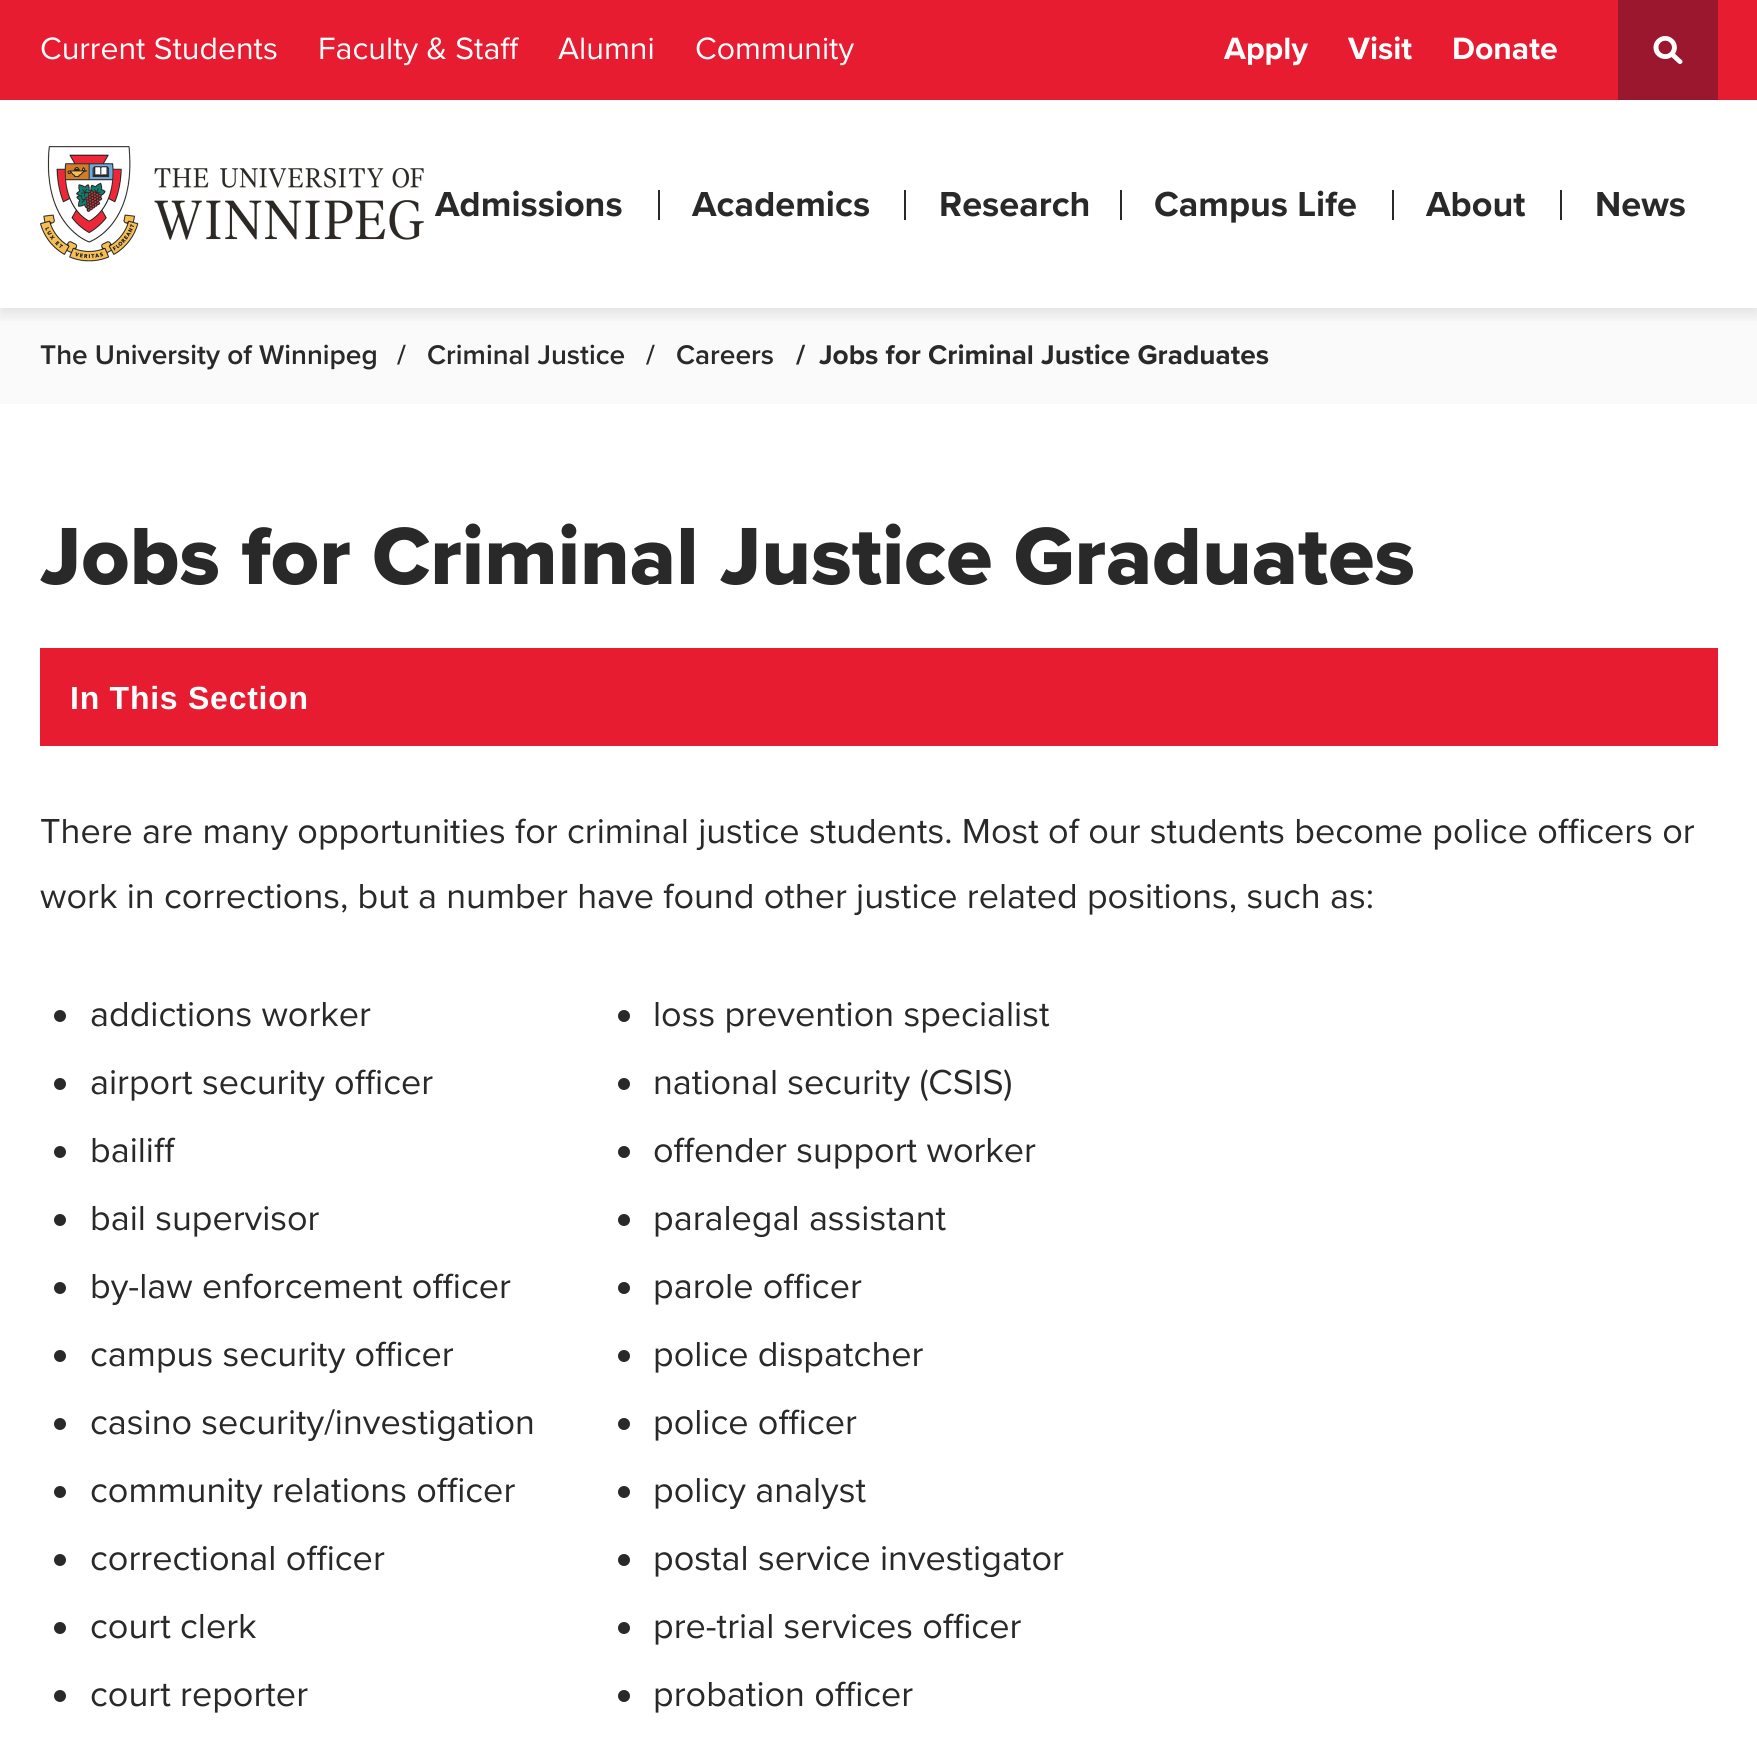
#include <cairo.h>
#include <math.h>
#include <stddef.h>


static void rgb(cairo_t *cr, int r, int g, int b)
{
	cairo_set_source_rgb(cr, r / 255.0, g / 255.0, b / 255.0);
}

static void face(cairo_t *cr, const char *family, double size, int italic, int bold)
{
	cairo_select_font_face(cr, family, italic ? CAIRO_FONT_SLANT_ITALIC : CAIRO_FONT_SLANT_NORMAL,
		bold ? CAIRO_FONT_WEIGHT_BOLD : CAIRO_FONT_WEIGHT_NORMAL);
	cairo_set_font_size(cr, size);
}

static void label(cairo_t *cr, double x, double y, const char *s)
{
	cairo_move_to(cr, x, y);
	cairo_show_text(cr, s);
}

static void tracked(cairo_t *cr, double x, double y, const char *s, double letter, double word)
{
	cairo_move_to(cr, x, y);
	while (*s) {
		char ch[5] = {0};
		int n = 0;
		do ch[n++] = *s++; while ((*s & 0xC0) == 0x80);
		cairo_show_text(cr, ch);
		cairo_rel_move_to(cr, letter + word * (*ch == ' '), 0);
	}
}

static void rect(cairo_t *cr, double x, double y, double w, double h)
{
	cairo_rectangle(cr, x, y, w, h);
	cairo_fill(cr);
}

static void rrect(cairo_t *cr, double x, double y, double w, double h, double r)
{
	cairo_new_sub_path(cr);
	cairo_arc(cr, x + w - r, y + h - r, r, 0, M_PI / 2);
	cairo_arc(cr, x + r, y + h - r, r, M_PI / 2, M_PI);
	cairo_arc(cr, x + r, y + r, r, M_PI, 1.5 * M_PI);
	cairo_arc(cr, x + w - r, y + r, r, 1.5 * M_PI, 2 * M_PI);
	cairo_close_path(cr);
}

static void soft_shadow(cairo_t *cr, double x, double y, double w, double h, double r, double blur, double alpha)
{
	cairo_push_group_with_content(cr, CAIRO_CONTENT_ALPHA);
	cairo_set_operator(cr, CAIRO_OPERATOR_SOURCE);
	for (int i = 15; i >= -15 && fmin(w, h) + blur * i / 3 > 0; i -= 2) {
		double e = blur * i / 6;
		cairo_set_source_rgba(cr, 0, 0, 0, alpha * erfc((i - 1) / 8.5) / 2);
		rrect(cr, x - e, y - e, w + 2 * e, h + 2 * e, fmax(0, fmin(r + e + blur * .6, fmin(w, h) / 2 + e)));
		cairo_fill(cr);
	}
	cairo_pattern_t *soft = cairo_pop_group(cr);
	cairo_mask(cr, soft);
	cairo_pattern_destroy(soft);
}

static void image(cairo_t *cr, const char *path, double x, double y, double w, double h)
{
	cairo_surface_t *image = cairo_image_surface_create_from_png(path);
	cairo_save(cr);
	cairo_set_source_surface(cr, image, x, y);
	cairo_rectangle(cr, x, y, w, h);
	cairo_fill(cr);
	cairo_restore(cr);
	cairo_surface_destroy(image);
}

static void draw(cairo_t *cr) {
	rgb(cr, 255, 255, 255);
	cairo_paint(cr);
	rgb(cr, 250, 250, 250);
	rect(cr, 0, 308, 1757, 96);
	cairo_save(cr);
	cairo_rectangle(cr, 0, 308, 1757, 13);
	cairo_clip(cr);
	rgb(cr, 0, 0, 0);
	soft_shadow(cr, 0, 6, 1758, 308, 0, 8, 0.1);
	cairo_restore(cr);
	rgb(cr, 231, 28, 49);
	rect(cr, 0, 0, 1757, 100);
	face(cr, "Proxima Nova", 32, 0, 0);
	rgb(cr, 255, 255, 255);
	label(cr, 40, 59, "Current Students");
	label(cr, 318, 59, "Faculty & Staff");
	label(cr, 558, 59, "Alumni");
	label(cr, 695, 59, "Community");
	face(cr, "Proxima Nova", 32, 0, 1);
	label(cr, 1224, 59, "Apply");
	label(cr, 1348, 59, "Visit");
	label(cr, 1452, 59, "Donate");
	rgb(cr, 155, 23, 46);
	rect(cr, 1618, 0, 100, 100);
	image(cr, "image0.png", 1653, 36, 30, 28);
	image(cr, "image1.png", 40, 146, 384, 116);
	face(cr, "Proxima Nova", 36, 0, 1);
	rgb(cr, 41, 41, 41);
	label(cr, 435, 216, "Admissions");
	rect(cr, 658, 190, 2, 30);
	label(cr, 692, 216, "Academics");
	rect(cr, 904, 190, 2, 30);
	label(cr, 939, 216, "Research");
	rect(cr, 1120, 190, 2, 30);
	label(cr, 1154, 216, "Campus Life");
	rect(cr, 1392, 190, 2, 30);
	label(cr, 1426, 216, "About");
	rect(cr, 1560, 190, 2, 30);
	label(cr, 1595, 216, "News");
	face(cr, "Proxima Nova SemiBold", 28, 0, 0);
	label(cr, 40, 364, "The University of Winnipeg");
	label(cr, 397, 364, "/");
	label(cr, 427, 364, "Criminal Justice");
	label(cr, 646, 364, "/");
	label(cr, 676, 364, "Careers");
	face(cr, "Proxima Nova", 28, 0, 1);
	label(cr, 796, 364, "/");
	label(cr, 819, 364, "Jobs for Criminal Justice Graduates");
	face(cr, "Proxima Nova ExtraBold", 84, 0, 0);
	label(cr, 40, 584, "Jobs for Criminal Justice Graduates");
	rgb(cr, 231, 28, 49);
	rect(cr, 40, 648, 1678, 98);
	face(cr, "Liberation Sans", 32, 0, 1);
	rgb(cr, 255, 255, 255);
	tracked(cr, 70, 709, "In This Section", 0.75, 0);
	face(cr, "Proxima Nova", 36, 0, 0);
	rgb(cr, 41, 41, 41);
	label(cr, 40, 843, "There are many opportunities for criminal justice students. Most of our students become police officers or");
	label(cr, 40, 908, "work in corrections, but a number have found other justice related positions, such as:");
	cairo_new_path(cr);
	cairo_arc(cr, 60, 1016, 6, 0, 2 * M_PI);
	cairo_fill(cr);
	label(cr, 90, 1026, "addictions worker");
	cairo_new_path(cr);
	cairo_arc(cr, 60, 1084, 6, 0, 2 * M_PI);
	cairo_fill(cr);
	label(cr, 90, 1094, "airport security officer");
	cairo_new_path(cr);
	cairo_arc(cr, 60, 1152, 6, 0, 2 * M_PI);
	cairo_fill(cr);
	label(cr, 90, 1162, "bailiff");
	cairo_new_path(cr);
	cairo_arc(cr, 60, 1220, 6, 0, 2 * M_PI);
	cairo_fill(cr);
	label(cr, 90, 1230, "bail supervisor");
	cairo_new_path(cr);
	cairo_arc(cr, 60, 1288, 6, 0, 2 * M_PI);
	cairo_fill(cr);
	label(cr, 90, 1298, "by-law enforcement officer");
	cairo_new_path(cr);
	cairo_arc(cr, 60, 1356, 6, 0, 2 * M_PI);
	cairo_fill(cr);
	label(cr, 90, 1366, "campus security officer");
	cairo_new_path(cr);
	cairo_arc(cr, 60, 1424, 6, 0, 2 * M_PI);
	cairo_fill(cr);
	label(cr, 90, 1434, "casino security/investigation");
	cairo_new_path(cr);
	cairo_arc(cr, 60, 1492, 6, 0, 2 * M_PI);
	cairo_fill(cr);
	label(cr, 90, 1502, "community relations officer");
	cairo_new_path(cr);
	cairo_arc(cr, 60, 1560, 6, 0, 2 * M_PI);
	cairo_fill(cr);
	label(cr, 90, 1570, "correctional officer");
	cairo_new_path(cr);
	cairo_arc(cr, 60, 1628, 6, 0, 2 * M_PI);
	cairo_fill(cr);
	label(cr, 90, 1638, "court clerk");
	cairo_new_path(cr);
	cairo_arc(cr, 60, 1696, 6, 0, 2 * M_PI);
	cairo_fill(cr);
	label(cr, 90, 1706, "court reporter");
	cairo_new_path(cr);
	cairo_arc(cr, 624, 1016, 6, 0, 2 * M_PI);
	cairo_fill(cr);
	label(cr, 653, 1026, "loss prevention specialist");
	cairo_new_path(cr);
	cairo_arc(cr, 624, 1084, 6, 0, 2 * M_PI);
	cairo_fill(cr);
	label(cr, 653, 1094, "national security (CSIS)");
	cairo_new_path(cr);
	cairo_arc(cr, 624, 1152, 6, 0, 2 * M_PI);
	cairo_fill(cr);
	label(cr, 653, 1162, "offender support worker");
	cairo_new_path(cr);
	cairo_arc(cr, 624, 1220, 6, 0, 2 * M_PI);
	cairo_fill(cr);
	label(cr, 653, 1230, "paralegal assistant");
	cairo_new_path(cr);
	cairo_arc(cr, 624, 1288, 6, 0, 2 * M_PI);
	cairo_fill(cr);
	label(cr, 653, 1298, "parole officer");
	cairo_new_path(cr);
	cairo_arc(cr, 624, 1356, 6, 0, 2 * M_PI);
	cairo_fill(cr);
	label(cr, 653, 1366, "police dispatcher");
	cairo_new_path(cr);
	cairo_arc(cr, 624, 1424, 6, 0, 2 * M_PI);
	cairo_fill(cr);
	label(cr, 653, 1434, "police officer");
	cairo_new_path(cr);
	cairo_arc(cr, 624, 1492, 6, 0, 2 * M_PI);
	cairo_fill(cr);
	label(cr, 653, 1502, "policy analyst");
	cairo_new_path(cr);
	cairo_arc(cr, 624, 1560, 6, 0, 2 * M_PI);
	cairo_fill(cr);
	label(cr, 653, 1570, "postal service investigator");
	cairo_new_path(cr);
	cairo_arc(cr, 624, 1628, 6, 0, 2 * M_PI);
	cairo_fill(cr);
	label(cr, 653, 1638, "pre-trial services officer");
	cairo_new_path(cr);
	cairo_arc(cr, 624, 1696, 6, 0, 2 * M_PI);
	cairo_fill(cr);
	label(cr, 653, 1706, "probation officer");
}

int main(void) {
	cairo_surface_t *surface = cairo_image_surface_create(CAIRO_FORMAT_RGB24, 1757, 1751);
	cairo_t *cr = cairo_create(surface);
	cairo_font_options_t *options = cairo_font_options_create();
	cairo_font_options_set_hint_metrics(options, CAIRO_HINT_METRICS_OFF);
	cairo_font_options_set_hint_style(options, CAIRO_HINT_STYLE_NONE);
	cairo_set_font_options(cr, options);
	cairo_set_miter_limit(cr, 4);
	draw(cr);
	cairo_surface_write_to_png(surface, "render.png");
	cairo_font_options_destroy(options);
	cairo_destroy(cr);
	cairo_surface_destroy(surface);
	return 0;
}
